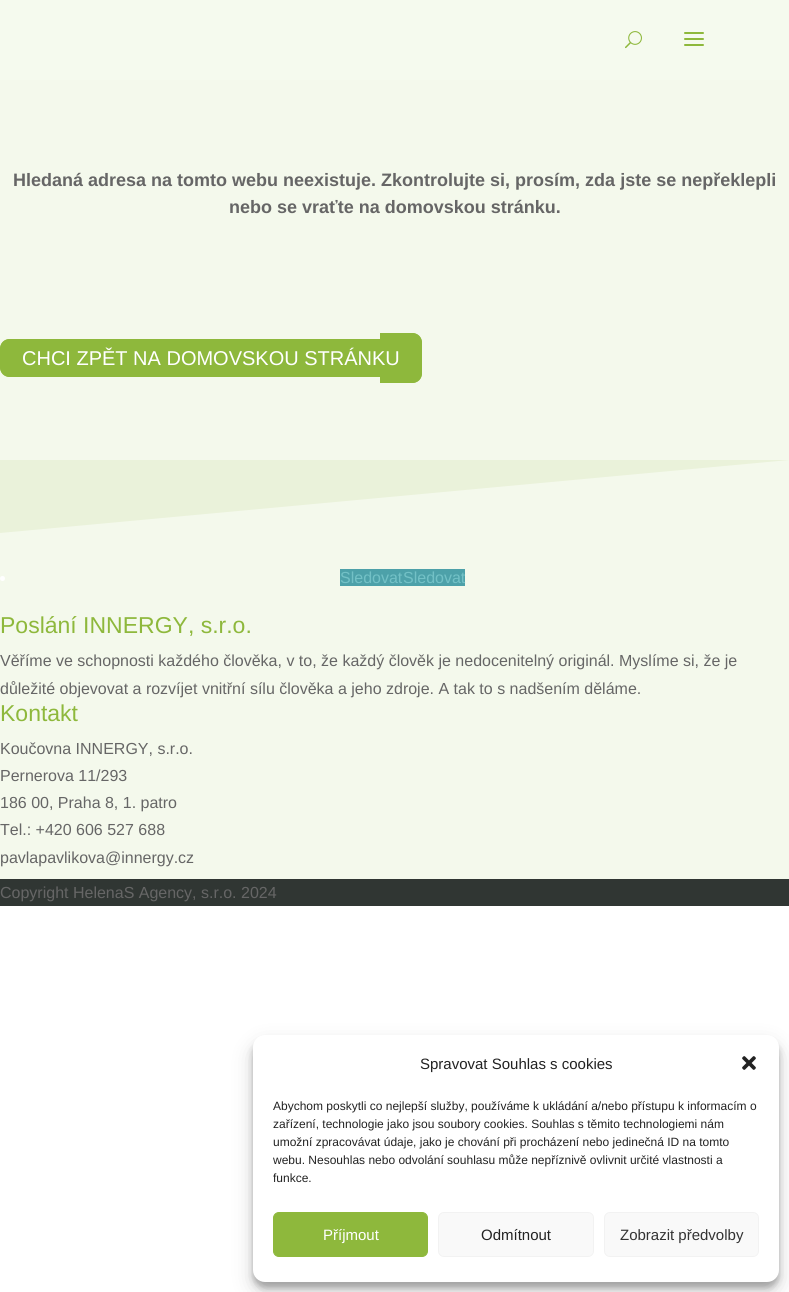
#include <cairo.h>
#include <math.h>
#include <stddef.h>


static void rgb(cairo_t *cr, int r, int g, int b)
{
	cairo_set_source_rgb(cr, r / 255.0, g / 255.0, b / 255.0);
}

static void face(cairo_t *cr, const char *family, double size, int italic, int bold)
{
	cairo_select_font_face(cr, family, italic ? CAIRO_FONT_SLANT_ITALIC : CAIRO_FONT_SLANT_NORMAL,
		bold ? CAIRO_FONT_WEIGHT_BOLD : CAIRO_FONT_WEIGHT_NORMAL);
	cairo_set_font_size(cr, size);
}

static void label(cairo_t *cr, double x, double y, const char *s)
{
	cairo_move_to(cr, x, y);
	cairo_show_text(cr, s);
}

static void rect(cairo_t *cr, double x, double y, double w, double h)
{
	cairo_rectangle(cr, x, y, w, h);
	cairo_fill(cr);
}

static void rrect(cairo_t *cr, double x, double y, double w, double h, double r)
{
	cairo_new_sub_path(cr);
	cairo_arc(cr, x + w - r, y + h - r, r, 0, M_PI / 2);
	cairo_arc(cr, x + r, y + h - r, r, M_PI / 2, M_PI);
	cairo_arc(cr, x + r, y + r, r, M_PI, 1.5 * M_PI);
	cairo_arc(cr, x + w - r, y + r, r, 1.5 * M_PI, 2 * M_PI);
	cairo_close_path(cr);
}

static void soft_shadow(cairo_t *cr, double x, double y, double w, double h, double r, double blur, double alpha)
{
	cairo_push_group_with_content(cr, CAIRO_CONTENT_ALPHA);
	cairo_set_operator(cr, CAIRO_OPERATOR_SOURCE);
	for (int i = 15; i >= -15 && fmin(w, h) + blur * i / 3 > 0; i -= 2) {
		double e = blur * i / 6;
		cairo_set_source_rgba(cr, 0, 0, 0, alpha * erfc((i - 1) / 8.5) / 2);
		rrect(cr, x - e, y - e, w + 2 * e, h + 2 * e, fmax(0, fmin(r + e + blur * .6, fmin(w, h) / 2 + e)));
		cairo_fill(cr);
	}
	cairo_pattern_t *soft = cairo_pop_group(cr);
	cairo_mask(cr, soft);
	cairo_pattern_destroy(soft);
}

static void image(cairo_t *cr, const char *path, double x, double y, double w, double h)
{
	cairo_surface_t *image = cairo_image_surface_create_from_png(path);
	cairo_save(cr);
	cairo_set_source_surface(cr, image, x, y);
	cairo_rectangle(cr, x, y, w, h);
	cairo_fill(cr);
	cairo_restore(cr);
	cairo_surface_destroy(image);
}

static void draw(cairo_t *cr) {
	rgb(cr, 255, 255, 255);
	cairo_paint(cr);
	rgb(cr, 245, 250, 238);
	rect(cr, 0, 0, 789, 80);
	image(cr, "image0.png", 625, 31, 17, 18);
	image(cr, "image1.png", 684, 32, 20, 14);
	rgb(cr, 244, 249, 236);
	rect(cr, 0, 80, 789, 799);
	face(cr, "Liberation Sans", 18, 0, 1);
	rgb(cr, 102, 102, 102);
	label(cr, 13, 186, "Hledaná adresa na tomto webu neexistuje. Zkontrolujte si, prosím, zda jste se nepřeklepli");
	label(cr, 229, 213, "nebo se vraťte na domovskou stránku.");
	rgb(cr, 142, 184, 60);
	cairo_new_path(cr);
	cairo_move_to(cr, 10, 339);
	cairo_line_to(cr, 400, 339);
	cairo_line_to(cr, 400, 377);
	cairo_line_to(cr, 10, 377);
	cairo_curve_to(cr, 4.5, 377, 0, 372.5, 0, 367);
	cairo_line_to(cr, 0, 349);
	cairo_curve_to(cr, 0, 343.5, 4.5, 339, 10, 339);
	cairo_close_path(cr);
	cairo_fill(cr);
	cairo_set_fill_rule(cr, CAIRO_FILL_RULE_EVEN_ODD);
	cairo_new_path(cr);
	cairo_move_to(cr, 10, 339);
	cairo_line_to(cr, 400, 339);
	cairo_line_to(cr, 400, 377);
	cairo_line_to(cr, 10, 377);
	cairo_curve_to(cr, 4, 377, 0, 373, 0, 367);
	cairo_line_to(cr, 0, 349);
	cairo_curve_to(cr, 0, 343, 4, 339, 10, 339);
	cairo_close_path(cr);
	cairo_move_to(cr, 10, 341);
	cairo_line_to(cr, 400, 341);
	cairo_line_to(cr, 400, 375);
	cairo_line_to(cr, 10, 375);
	cairo_curve_to(cr, 0, 375, 2, 364, 2, 358);
	cairo_curve_to(cr, 2, 352, 0, 341, 10, 341);
	cairo_close_path(cr);
	cairo_fill(cr);
	cairo_new_path(cr);
	cairo_move_to(cr, 380, 333);
	cairo_line_to(cr, 412, 333);
	cairo_curve_to(cr, 417.5, 333, 422, 337.5, 422, 343);
	cairo_line_to(cr, 422, 373);
	cairo_curve_to(cr, 422, 378.5, 417.5, 383, 412, 383);
	cairo_line_to(cr, 380, 383);
	cairo_close_path(cr);
	cairo_fill(cr);
	cairo_new_path(cr);
	cairo_move_to(cr, 380, 333);
	cairo_line_to(cr, 412, 333);
	cairo_curve_to(cr, 418, 333, 422, 337, 422, 343);
	cairo_line_to(cr, 422, 373);
	cairo_curve_to(cr, 422, 379, 418, 383, 412, 383);
	cairo_line_to(cr, 380, 383);
	cairo_close_path(cr);
	cairo_move_to(cr, 380, 335);
	cairo_line_to(cr, 412, 335);
	cairo_curve_to(cr, 416, 335, 420, 339, 420, 343);
	cairo_line_to(cr, 420, 373);
	cairo_curve_to(cr, 420, 377, 416, 381, 412, 381);
	cairo_line_to(cr, 380, 381);
	cairo_close_path(cr);
	cairo_fill(cr);
	face(cr, "Liberation Sans", 20, 0, 0);
	rgb(cr, 255, 255, 255);
	label(cr, 22, 365, "CHCI ZPĚT NA DOMOVSKOU STRÁNKU");
	rgb(cr, 234, 242, 218);
	cairo_set_fill_rule(cr, CAIRO_FILL_RULE_WINDING);
	cairo_new_path(cr);
	cairo_move_to(cr, 0, 533);
	cairo_line_to(cr, 0, 460);
	cairo_line_to(cr, 789, 460);
	cairo_close_path(cr);
	cairo_fill(cr);
	rgb(cr, 255, 255, 255);
	cairo_arc(cr, 2.5, 578.5, 2.5, 0, 2 * M_PI);
	cairo_fill(cr);
	rgb(cr, 77, 161, 169);
	rect(cr, 340, 569, 125, 17);
	face(cr, "Liberation Sans", 16, 0, 0);
	rgb(cr, 115, 193, 198);
	label(cr, 340, 583, "Sledovat");
	label(cr, 403, 583, "Sledovat");
	face(cr, "Liberation Sans", 23, 0, 0);
	rgb(cr, 142, 184, 60);
	label(cr, 0, 633, "Poslání INNERGY, s.r.o.");
	face(cr, "Liberation Sans", 16, 0, 0);
	rgb(cr, 102, 102, 102);
	label(cr, 0, 666, "Věříme ve schopnosti každého člověka, v to, že každý člověk je nedocenitelný originál. Myslíme si, že je");
	label(cr, 0, 694, "důležité objevovat a rozvíjet vnitřní sílu člověka a jeho zdroje. A tak to s nadšením děláme.");
	face(cr, "Liberation Sans", 23, 0, 0);
	rgb(cr, 142, 184, 60);
	label(cr, 0, 721, "Kontakt");
	face(cr, "Liberation Sans", 16, 0, 0);
	rgb(cr, 102, 102, 102);
	label(cr, 0, 754, "Koučovna INNERGY, s.r.o.");
	label(cr, 0, 781, "Pernerova 11/293");
	label(cr, 0, 808, "186 00, Praha 8, 1. patro");
	label(cr, 0, 835, "Tel.: +420 606 527 688");
	label(cr, 0, 863, "pavlapavlikova@innergy.cz");
	rgb(cr, 48, 54, 51);
	rect(cr, 0, 879, 789, 27);
	rgb(cr, 102, 102, 102);
	label(cr, 0, 898, "Copyright HelenaS Agency, s.r.o. 2024");
	rgb(cr, 0, 0, 0);
	soft_shadow(cr, 253, 1041, 526, 247, 12, 3, 0.23);
	soft_shadow(cr, 253, 1045, 526, 247, 12, 10, 0.19);
	rgb(cr, 255, 255, 255);
	rrect(cr, 253, 1035, 526, 247, 12);
	cairo_fill(cr);
	face(cr, "Liberation Sans", 15, 0, 0);
	rgb(cr, 34, 34, 34);
	label(cr, 420, 1069, "Spravovat Souhlas s cookies");
	image(cr, "image2.png", 742, 1056, 14, 14);
	face(cr, "Liberation Sans", 12, 0, 0);
	label(cr, 273, 1110, "Abychom poskytli co nejlepší služby, používáme k ukládání a/nebo přístupu k informacím o");
	label(cr, 273, 1128, "zařízení, technologie jako jsou soubory cookies. Souhlas s těmito technologiemi nám");
	label(cr, 273, 1146, "umožní zpracovávat údaje, jako je chování při procházení nebo jedinečná ID na tomto");
	label(cr, 273, 1164, "webu. Nesouhlas nebo odvolání souhlasu může nepříznivě ovlivnit určité vlastnosti a");
	label(cr, 273, 1182, "funkce.");
	rgb(cr, 142, 184, 60);
	rrect(cr, 273.5, 1212.5, 154, 44, 5.5);
	cairo_fill_preserve(cr);
	cairo_set_line_width(cr, 1);
	cairo_stroke(cr);
	face(cr, "Liberation Sans", 15, 0, 0);
	rgb(cr, 255, 255, 255);
	label(cr, 323, 1240, "Příjmout");
	rgb(cr, 249, 249, 249);
	rrect(cr, 438.5, 1212.5, 155, 44, 5.5);
	cairo_fill_preserve(cr);
	rgb(cr, 242, 242, 242);
	cairo_stroke(cr);
	rgb(cr, 34, 34, 34);
	label(cr, 481, 1240, "Odmítnout");
	rgb(cr, 249, 249, 249);
	rrect(cr, 604.5, 1212.5, 154, 44, 5.5);
	cairo_fill_preserve(cr);
	rgb(cr, 242, 242, 242);
	cairo_stroke(cr);
	rgb(cr, 51, 51, 51);
	label(cr, 620, 1240, "Zobrazit předvolby");
}

int main(void) {
	cairo_surface_t *surface = cairo_image_surface_create(CAIRO_FORMAT_RGB24, 789, 1292);
	cairo_t *cr = cairo_create(surface);
	cairo_font_options_t *options = cairo_font_options_create();
	cairo_font_options_set_hint_metrics(options, CAIRO_HINT_METRICS_OFF);
	cairo_font_options_set_hint_style(options, CAIRO_HINT_STYLE_NONE);
	cairo_set_font_options(cr, options);
	cairo_set_miter_limit(cr, 4);
	draw(cr);
	cairo_surface_write_to_png(surface, "render.png");
	cairo_font_options_destroy(options);
	cairo_destroy(cr);
	cairo_surface_destroy(surface);
	return 0;
}
